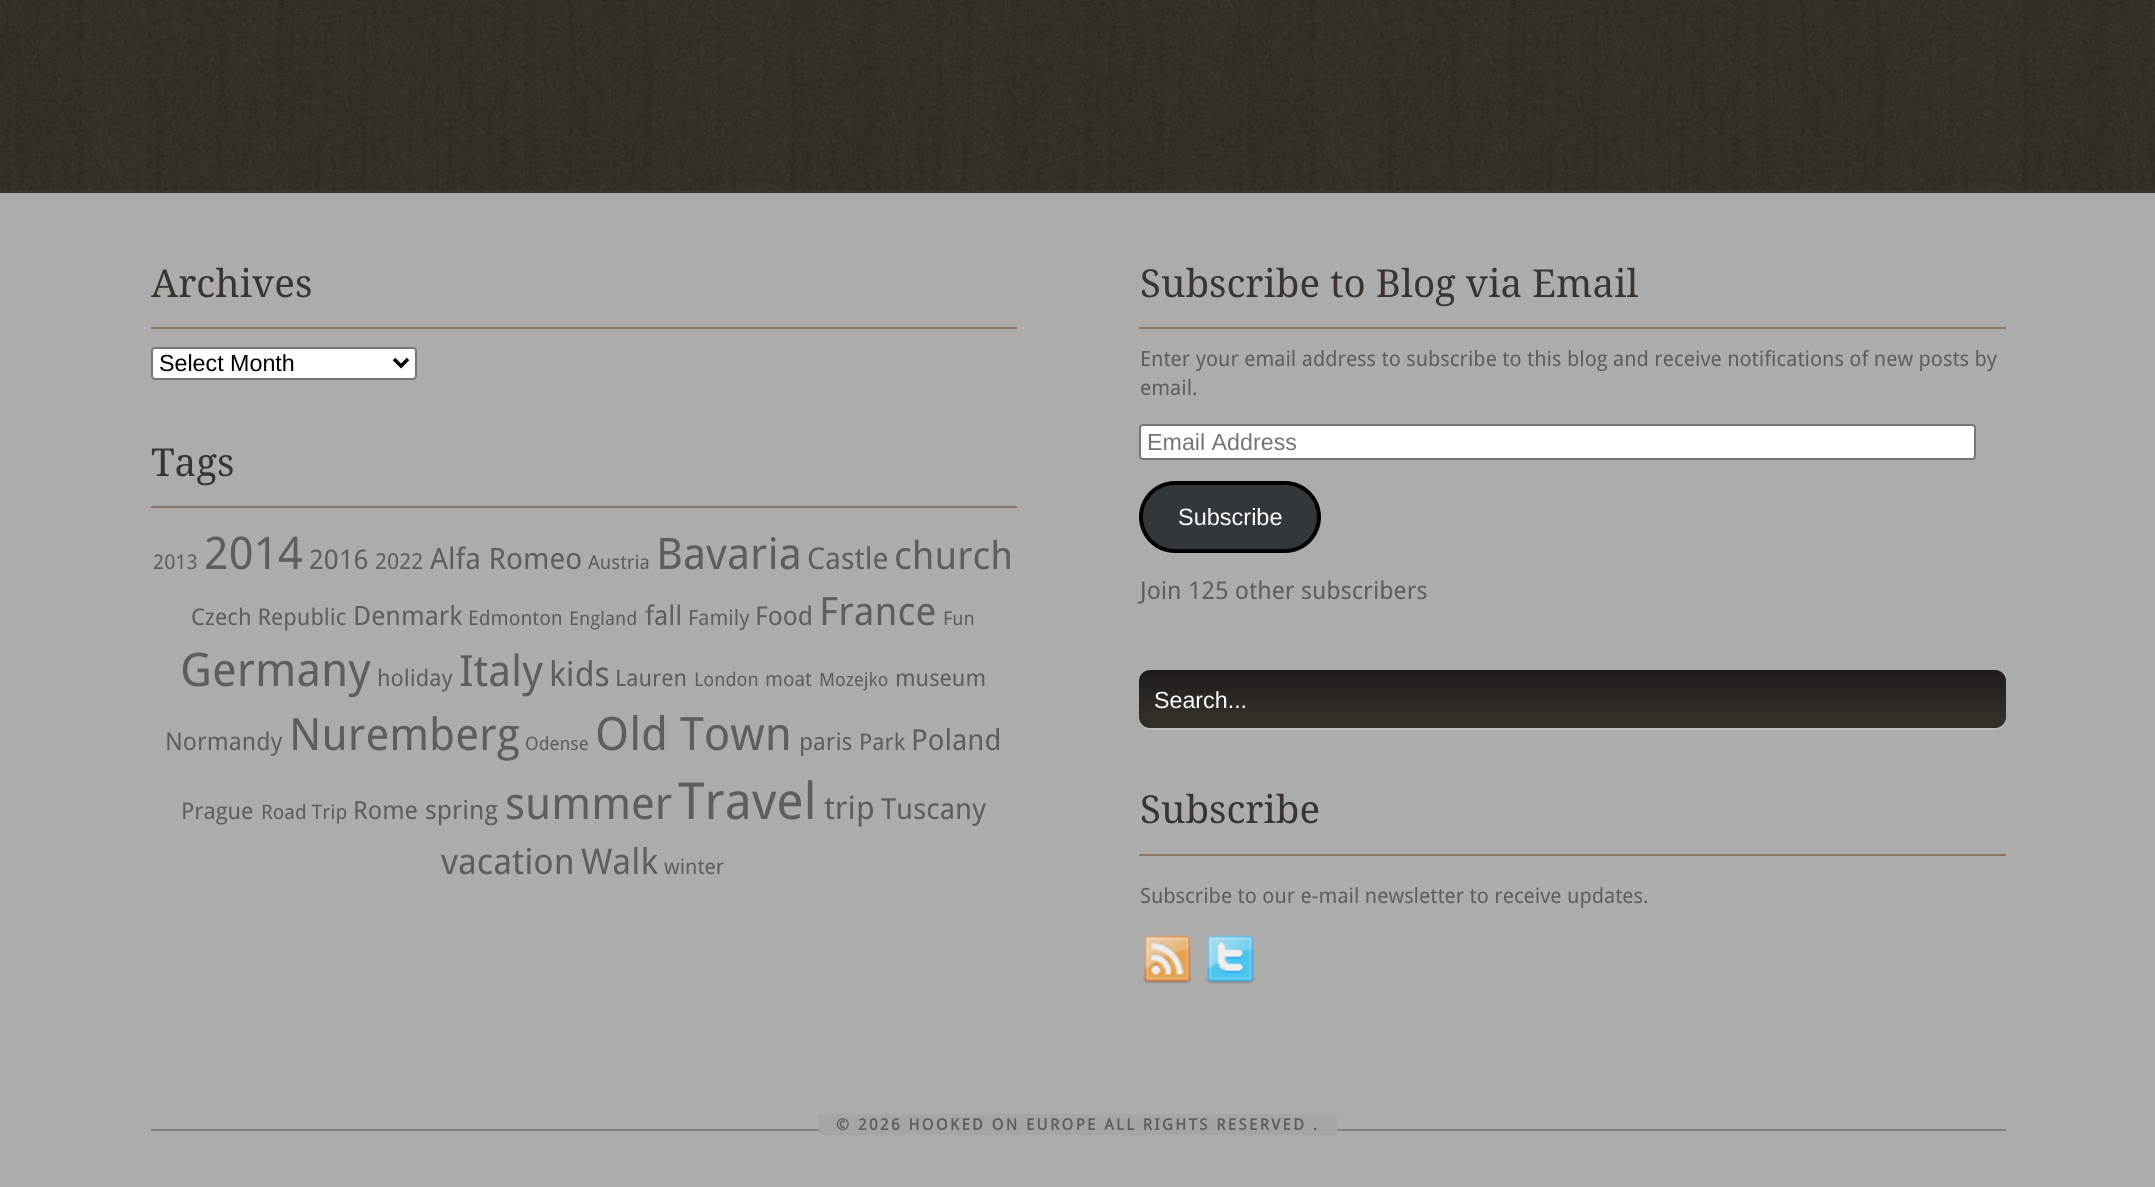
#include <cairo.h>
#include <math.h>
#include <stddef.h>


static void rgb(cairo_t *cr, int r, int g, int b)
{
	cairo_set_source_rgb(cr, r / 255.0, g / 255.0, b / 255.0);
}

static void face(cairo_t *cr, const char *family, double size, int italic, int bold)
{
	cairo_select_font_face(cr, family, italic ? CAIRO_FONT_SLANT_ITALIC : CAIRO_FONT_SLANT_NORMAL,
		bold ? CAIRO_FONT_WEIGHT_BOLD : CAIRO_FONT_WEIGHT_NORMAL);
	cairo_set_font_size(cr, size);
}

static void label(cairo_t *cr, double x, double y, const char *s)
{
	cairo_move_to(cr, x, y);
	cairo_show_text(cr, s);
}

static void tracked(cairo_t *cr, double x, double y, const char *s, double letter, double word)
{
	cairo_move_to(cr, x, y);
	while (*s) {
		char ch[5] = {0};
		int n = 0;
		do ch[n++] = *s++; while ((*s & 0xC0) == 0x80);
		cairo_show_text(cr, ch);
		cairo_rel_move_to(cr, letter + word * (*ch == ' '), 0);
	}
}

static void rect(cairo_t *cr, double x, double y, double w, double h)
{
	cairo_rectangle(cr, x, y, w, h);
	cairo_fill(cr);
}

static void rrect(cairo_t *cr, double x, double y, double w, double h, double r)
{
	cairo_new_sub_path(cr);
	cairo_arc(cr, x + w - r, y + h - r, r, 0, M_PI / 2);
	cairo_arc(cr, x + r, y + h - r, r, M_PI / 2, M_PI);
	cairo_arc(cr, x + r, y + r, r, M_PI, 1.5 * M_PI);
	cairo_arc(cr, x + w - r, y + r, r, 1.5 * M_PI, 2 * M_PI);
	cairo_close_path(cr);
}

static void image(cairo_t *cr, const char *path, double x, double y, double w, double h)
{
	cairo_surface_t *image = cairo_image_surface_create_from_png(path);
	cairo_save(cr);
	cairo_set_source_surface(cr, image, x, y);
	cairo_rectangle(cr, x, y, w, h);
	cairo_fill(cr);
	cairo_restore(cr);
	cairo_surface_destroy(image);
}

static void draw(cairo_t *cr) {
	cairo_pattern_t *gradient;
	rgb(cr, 173, 172, 173);
	cairo_paint(cr);
	rgb(cr, 58, 53, 48);
	rect(cr, 0, 190, 2155, 3);
	image(cr, "image0.png", 0, 0, 2155, 191);
	rgb(cr, 137, 118, 101);
	rect(cr, 151, 327, 866, 2);
	face(cr, "Droid Serif", 38.5, 0, 0);
	rgb(cr, 58, 53, 48);
	label(cr, 151, 297, "Archives");
	rgb(cr, 255, 255, 255);
	rrect(cr, 152, 348, 264, 31, 3);
	cairo_fill_preserve(cr);
	rgb(cr, 118, 118, 118);
	cairo_stroke(cr);
	cairo_new_path(cr);
	cairo_move_to(cr, 394, 359);
	cairo_line_to(cr, 401, 366);
	cairo_line_to(cr, 408, 359);
	rgb(cr, 0, 0, 0);
	cairo_set_line_width(cr, 3.5);
	cairo_stroke(cr);
	face(cr, "Liberation Sans", 23.25, 0, 0);
	label(cr, 159, 371, "Select Month");
	rgb(cr, 137, 118, 101);
	rect(cr, 151, 506, 866, 2);
	face(cr, "Droid Serif", 38.5, 0, 0);
	rgb(cr, 58, 53, 48);
	label(cr, 151, 476, "Tags");
	face(cr, "Droid Sans", 20.25, 0, 0);
	rgb(cr, 94, 94, 94);
	label(cr, 153, 569, "2013");
	face(cr, "Droid Sans", 45, 0, 0);
	label(cr, 204, 569, "2014");
	face(cr, "Droid Sans", 27, 0, 0);
	label(cr, 309, 569, "2016");
	face(cr, "Droid Sans", 22, 0, 0);
	label(cr, 375, 569, "2022");
	face(cr, "Droid Sans", 29.5, 0, 0);
	label(cr, 430, 569, "Alfa Romeo");
	face(cr, "Droid Sans", 19.5, 0, 0);
	label(cr, 588, 569, "Austria");
	face(cr, "Droid Sans", 43.5, 0, 0);
	label(cr, 656, 569, "Bavaria");
	face(cr, "Droid Sans", 30, 0, 0);
	label(cr, 807, 569, "Castle");
	face(cr, "Droid Sans", 38.5, 0, 0);
	label(cr, 894, 569, "church");
	face(cr, "Droid Sans", 23, 0, 0);
	label(cr, 191, 625, "Czech Republic");
	face(cr, "Droid Sans", 26.5, 0, 0);
	label(cr, 353, 625, "Denmark");
	face(cr, "Droid Sans", 20.25, 0, 0);
	label(cr, 468, 625, "Edmonton");
	face(cr, "Droid Sans", 19, 0, 0);
	label(cr, 569, 625, "England");
	face(cr, "Droid Sans", 27, 0, 0);
	label(cr, 645, 625, "fall");
	face(cr, "Droid Sans", 21, 0, 0);
	label(cr, 688, 625, "Family");
	face(cr, "Droid Sans", 26, 0, 0);
	label(cr, 755, 625, "Food");
	face(cr, "Droid Sans", 39, 0, 0);
	label(cr, 819, 625, "France");
	face(cr, "Droid Sans", 19, 0, 0);
	label(cr, 943, 625, "Fun");
	face(cr, "Droid Sans", 46.25, 0, 0);
	label(cr, 180, 686, "Germany");
	face(cr, "Droid Sans", 23, 0, 0);
	label(cr, 377, 686, "holiday");
	face(cr, "Droid Sans", 43, 0, 0);
	label(cr, 459, 686, "Italy");
	face(cr, "Droid Sans", 34, 0, 0);
	label(cr, 549, 686, "kids");
	face(cr, "Droid Sans", 23, 0, 0);
	label(cr, 615, 686, "Lauren");
	face(cr, "Droid Sans", 19, 0, 0);
	label(cr, 694, 686, "London");
	face(cr, "Droid Sans", 20, 0, 0);
	label(cr, 765, 686, "moat");
	face(cr, "Droid Sans", 18.5, 0, 0);
	label(cr, 819, 686, "Mozejko");
	face(cr, "Droid Sans", 23, 0, 0);
	label(cr, 895, 686, "museum");
	face(cr, "Droid Sans", 24.5, 0, 0);
	label(cr, 165, 750, "Normandy");
	face(cr, "Droid Sans", 44.5, 0, 0);
	label(cr, 289, 750, "Nuremberg");
	face(cr, "Droid Sans", 18.5, 0, 0);
	label(cr, 525, 750, "Odense");
	face(cr, "Droid Sans", 46, 0, 0);
	label(cr, 595, 750, "Old Town");
	face(cr, "Droid Sans", 24, 0, 0);
	label(cr, 799, 750, "paris");
	face(cr, "Droid Sans", 23, 0, 0);
	label(cr, 859, 750, "Park");
	face(cr, "Droid Sans", 29, 0, 0);
	label(cr, 911, 750, "Poland");
	face(cr, "Droid Sans", 23, 0, 0);
	label(cr, 181, 819, "Prague");
	face(cr, "Droid Sans", 20, 0, 0);
	label(cr, 261, 819, "Road Trip");
	face(cr, "Droid Sans", 25, 0, 0);
	label(cr, 353, 819, "Rome");
	face(cr, "Droid Sans", 26, 0, 0);
	label(cr, 425, 819, "spring");
	face(cr, "Droid Sans", 44.5, 0, 0);
	label(cr, 505, 819, "summer");
	face(cr, "Droid Sans", 51, 0, 0);
	label(cr, 678, 819, "Travel");
	face(cr, "Droid Sans", 32, 0, 0);
	label(cr, 824, 819, "trip");
	face(cr, "Droid Sans", 29, 0, 0);
	label(cr, 881, 819, "Tuscany");
	face(cr, "Droid Sans", 35.5, 0, 0);
	label(cr, 441, 874, "vacation");
	label(cr, 581, 874, "Walk");
	face(cr, "Droid Sans", 21, 0, 0);
	label(cr, 664, 874, "winter");
	rgb(cr, 137, 118, 101);
	rect(cr, 1139, 327, 867, 2);
	face(cr, "Droid Serif", 38.5, 0, 0);
	rgb(cr, 58, 53, 48);
	label(cr, 1140, 297, "Subscribe to Blog via Email");
	face(cr, "Droid Sans", 21, 0, 0);
	rgb(cr, 94, 94, 94);
	label(cr, 1140, 366, "Enter your email address to subscribe to this blog and receive notifications of new posts by");
	label(cr, 1140, 395, "email.");
	rgb(cr, 255, 255, 255);
	rrect(cr, 1140, 425, 835, 34, 3);
	cairo_fill_preserve(cr);
	rgb(cr, 118, 118, 118);
	cairo_set_line_width(cr, 2);
	cairo_stroke(cr);
	face(cr, "Liberation Sans", 23.25, 0, 0);
	rgb(cr, 117, 117, 117);
	label(cr, 1147, 450, "Email Address");
	rgb(cr, 50, 55, 60);
	rrect(cr, 1141, 483, 178, 68, 34);
	cairo_fill_preserve(cr);
	rgb(cr, 0, 0, 0);
	cairo_set_line_width(cr, 4);
	cairo_stroke(cr);
	face(cr, "Liberation Sans", 23.5, 0, 0);
	rgb(cr, 255, 255, 255);
	label(cr, 1178, 525, "Subscribe");
	face(cr, "Droid Sans", 24.5, 0, 0);
	rgb(cr, 94, 94, 94);
	label(cr, 1140, 599, "Join 125 other subscribers");
	cairo_set_source_rgba(cr, 1, 1, 1, 0.2);
	cairo_new_path(cr);
	cairo_move_to(cr, 1139, 681);
	cairo_line_to(cr, 1139, 719);
	cairo_curve_to(cr, 1139, 725, 1144, 730, 1150, 730);
	cairo_line_to(cr, 1995, 730);
	cairo_curve_to(cr, 2001, 730, 2006, 725, 2006, 719);
	cairo_line_to(cr, 2006, 683);
	cairo_line_to(cr, 2005, 679);
	cairo_line_to(cr, 2006, 711);
	cairo_curve_to(cr, 2006, 719, 2005, 728, 1995, 728);
	cairo_line_to(cr, 1150, 728);
	cairo_curve_to(cr, 1137, 728, 1139, 714, 1139, 705);
	cairo_close_path(cr);
	cairo_fill(cr);
	gradient = cairo_pattern_create_linear(1572, 670, 1572, 728);
	cairo_pattern_add_color_stop_rgba(gradient, 0, 0.122, 0.106, 0.102, 1);
	cairo_pattern_add_color_stop_rgba(gradient, 0.76, 0.2, 0.18, 0.157, 1);
	cairo_set_source(cr, gradient);
	cairo_pattern_destroy(gradient);
	rrect(cr, 1139, 670, 867, 58, 11);
	cairo_fill(cr);
	face(cr, "Liberation Sans", 23.25, 0, 0);
	rgb(cr, 255, 255, 255);
	label(cr, 1154, 708, "Search...");
	rgb(cr, 137, 118, 101);
	rect(cr, 1139, 854, 867, 2);
	face(cr, "Droid Serif", 38.5, 0, 0);
	rgb(cr, 58, 53, 48);
	label(cr, 1140, 823, "Subscribe");
	face(cr, "Droid Sans", 21, 0, 0);
	rgb(cr, 94, 94, 94);
	label(cr, 1140, 903, "Subscribe to our e-mail newsletter to receive updates.");
	image(cr, "image1.png", 1142, 935, 50, 49);
	image(cr, "image2.png", 1205, 935, 50, 49);
	rgb(cr, 127, 127, 127);
	rect(cr, 151, 1129, 1855, 2);
	rgb(cr, 173, 172, 173);
	rect(cr, 819, 1129, 518, 2);
	image(cr, "image3.png", 819, 1114, 518, 21);
	face(cr, "Droid Sans", 15.75, 0, 1);
	rgb(cr, 94, 94, 94);
	tracked(cr, 836, 1130, "© 2026 HOOKED ON EUROPE ALL RIGHTS RESERVED .", 2.35, 0);
}

int main(void) {
	cairo_surface_t *surface = cairo_image_surface_create(CAIRO_FORMAT_RGB24, 2155, 1187);
	cairo_t *cr = cairo_create(surface);
	cairo_font_options_t *options = cairo_font_options_create();
	cairo_font_options_set_hint_metrics(options, CAIRO_HINT_METRICS_OFF);
	cairo_font_options_set_hint_style(options, CAIRO_HINT_STYLE_NONE);
	cairo_set_font_options(cr, options);
	cairo_set_miter_limit(cr, 4);
	draw(cr);
	cairo_surface_write_to_png(surface, "render.png");
	cairo_font_options_destroy(options);
	cairo_destroy(cr);
	cairo_surface_destroy(surface);
	return 0;
}
